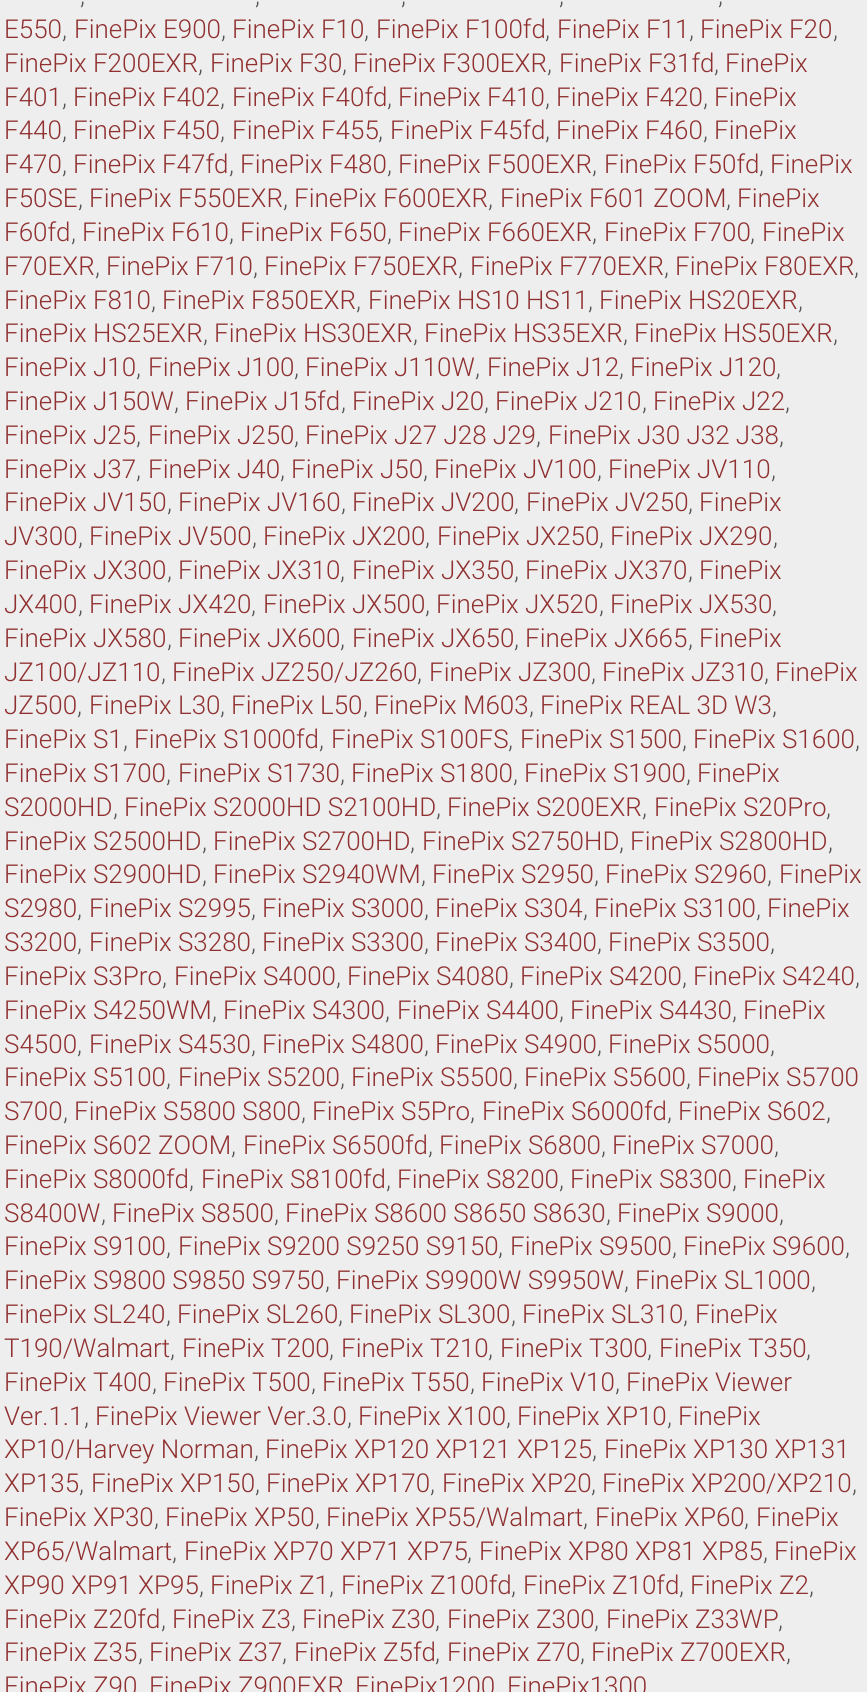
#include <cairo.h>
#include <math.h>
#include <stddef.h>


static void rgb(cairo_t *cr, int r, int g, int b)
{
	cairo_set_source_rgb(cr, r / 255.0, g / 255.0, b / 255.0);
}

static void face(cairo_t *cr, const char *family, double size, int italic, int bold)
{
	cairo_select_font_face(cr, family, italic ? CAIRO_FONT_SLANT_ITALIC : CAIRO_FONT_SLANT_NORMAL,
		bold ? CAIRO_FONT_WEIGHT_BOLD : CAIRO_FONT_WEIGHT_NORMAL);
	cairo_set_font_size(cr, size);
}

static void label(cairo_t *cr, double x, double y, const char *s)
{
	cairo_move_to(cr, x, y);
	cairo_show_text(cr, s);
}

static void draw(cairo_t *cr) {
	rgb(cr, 238, 238, 238);
	cairo_paint(cr);
	face(cr, "Roboto Light", 26, 0, 0);
	rgb(cr, 85, 85, 85);
	label(cr, 80, 4, ",");
	label(cr, 255, 4, ",");
	label(cr, 401, 4, ",");
	label(cr, 559, 4, ",");
	label(cr, 718, 4, ",");
	rgb(cr, 144, 48, 48);
	label(cr, 4, 38, "E550");
	rgb(cr, 85, 85, 85);
	label(cr, 62, 38, ",");
	rgb(cr, 144, 48, 48);
	label(cr, 74, 38, "FinePix E900");
	rgb(cr, 85, 85, 85);
	label(cr, 221, 38, ",");
	rgb(cr, 144, 48, 48);
	label(cr, 232, 38, "FinePix F10");
	rgb(cr, 85, 85, 85);
	label(cr, 364, 38, ",");
	rgb(cr, 144, 48, 48);
	label(cr, 376, 38, "FinePix F100fd");
	rgb(cr, 85, 85, 85);
	label(cr, 545, 38, ",");
	rgb(cr, 144, 48, 48);
	label(cr, 557, 38, "FinePix F11");
	rgb(cr, 85, 85, 85);
	label(cr, 689, 38, ",");
	rgb(cr, 144, 48, 48);
	label(cr, 700, 38, "FinePix F20");
	rgb(cr, 85, 85, 85);
	label(cr, 833, 38, ",");
	rgb(cr, 144, 48, 48);
	label(cr, 4, 72, "FinePix F200EXR");
	rgb(cr, 85, 85, 85);
	label(cr, 198, 72, ",");
	rgb(cr, 144, 48, 48);
	label(cr, 210, 72, "FinePix F30");
	rgb(cr, 85, 85, 85);
	label(cr, 342, 72, ",");
	rgb(cr, 144, 48, 48);
	label(cr, 353, 72, "FinePix F300EXR");
	rgb(cr, 85, 85, 85);
	label(cr, 547, 72, ",");
	rgb(cr, 144, 48, 48);
	label(cr, 559, 72, "FinePix F31fd");
	rgb(cr, 85, 85, 85);
	label(cr, 714, 72, ",");
	rgb(cr, 144, 48, 48);
	label(cr, 725, 72, "FinePix");
	label(cr, 4, 106, "F401");
	rgb(cr, 85, 85, 85);
	label(cr, 62, 106, ",");
	rgb(cr, 144, 48, 48);
	label(cr, 73, 106, "FinePix F402");
	rgb(cr, 85, 85, 85);
	label(cr, 220, 106, ",");
	rgb(cr, 144, 48, 48);
	label(cr, 232, 106, "FinePix F40fd");
	rgb(cr, 85, 85, 85);
	label(cr, 387, 106, ",");
	rgb(cr, 144, 48, 48);
	label(cr, 398, 106, "FinePix F410");
	rgb(cr, 85, 85, 85);
	label(cr, 545, 106, ",");
	rgb(cr, 144, 48, 48);
	label(cr, 556, 106, "FinePix F420");
	rgb(cr, 85, 85, 85);
	label(cr, 703, 106, ",");
	rgb(cr, 144, 48, 48);
	label(cr, 714, 106, "FinePix");
	label(cr, 4, 139, "F440");
	rgb(cr, 85, 85, 85);
	label(cr, 62, 139, ",");
	rgb(cr, 144, 48, 48);
	label(cr, 73, 139, "FinePix F450");
	rgb(cr, 85, 85, 85);
	label(cr, 220, 139, ",");
	rgb(cr, 144, 48, 48);
	label(cr, 232, 139, "FinePix F455");
	rgb(cr, 85, 85, 85);
	label(cr, 378, 139, ",");
	rgb(cr, 144, 48, 48);
	label(cr, 390, 139, "FinePix F45fd");
	rgb(cr, 85, 85, 85);
	label(cr, 545, 139, ",");
	rgb(cr, 144, 48, 48);
	label(cr, 556, 139, "FinePix F460");
	rgb(cr, 85, 85, 85);
	label(cr, 703, 139, ",");
	rgb(cr, 144, 48, 48);
	label(cr, 714, 139, "FinePix");
	label(cr, 4, 173, "F470");
	rgb(cr, 85, 85, 85);
	label(cr, 62, 173, ",");
	rgb(cr, 144, 48, 48);
	label(cr, 73, 173, "FinePix F47fd");
	rgb(cr, 85, 85, 85);
	label(cr, 229, 173, ",");
	rgb(cr, 144, 48, 48);
	label(cr, 240, 173, "FinePix F480");
	rgb(cr, 85, 85, 85);
	label(cr, 387, 173, ",");
	rgb(cr, 144, 48, 48);
	label(cr, 398, 173, "FinePix F500EXR");
	rgb(cr, 85, 85, 85);
	label(cr, 592, 173, ",");
	rgb(cr, 144, 48, 48);
	label(cr, 604, 173, "FinePix F50fd");
	rgb(cr, 85, 85, 85);
	label(cr, 759, 173, ",");
	rgb(cr, 144, 48, 48);
	label(cr, 770, 173, "FinePix");
	label(cr, 4, 207, "F50SE");
	rgb(cr, 85, 85, 85);
	label(cr, 78, 207, ",");
	rgb(cr, 144, 48, 48);
	label(cr, 89, 207, "FinePix F550EXR");
	rgb(cr, 85, 85, 85);
	label(cr, 283, 207, ",");
	rgb(cr, 144, 48, 48);
	label(cr, 294, 207, "FinePix F600EXR");
	rgb(cr, 85, 85, 85);
	label(cr, 488, 207, ",");
	rgb(cr, 144, 48, 48);
	label(cr, 500, 207, "FinePix F601 ZOOM");
	rgb(cr, 85, 85, 85);
	label(cr, 726, 207, ",");
	rgb(cr, 144, 48, 48);
	label(cr, 737, 207, "FinePix");
	label(cr, 4, 241, "F60fd");
	rgb(cr, 85, 85, 85);
	label(cr, 71, 241, ",");
	rgb(cr, 144, 48, 48);
	label(cr, 82, 241, "FinePix F610");
	rgb(cr, 85, 85, 85);
	label(cr, 229, 241, ",");
	rgb(cr, 144, 48, 48);
	label(cr, 240, 241, "FinePix F650");
	rgb(cr, 85, 85, 85);
	label(cr, 387, 241, ",");
	rgb(cr, 144, 48, 48);
	label(cr, 398, 241, "FinePix F660EXR");
	rgb(cr, 85, 85, 85);
	label(cr, 592, 241, ",");
	rgb(cr, 144, 48, 48);
	label(cr, 604, 241, "FinePix F700");
	rgb(cr, 85, 85, 85);
	label(cr, 750, 241, ",");
	rgb(cr, 144, 48, 48);
	label(cr, 762, 241, "FinePix");
	label(cr, 4, 275, "F70EXR");
	rgb(cr, 85, 85, 85);
	label(cr, 95, 275, ",");
	rgb(cr, 144, 48, 48);
	label(cr, 106, 275, "FinePix F710");
	rgb(cr, 85, 85, 85);
	label(cr, 253, 275, ",");
	rgb(cr, 144, 48, 48);
	label(cr, 264, 275, "FinePix F750EXR");
	rgb(cr, 85, 85, 85);
	label(cr, 458, 275, ",");
	rgb(cr, 144, 48, 48);
	label(cr, 470, 275, "FinePix F770EXR");
	rgb(cr, 85, 85, 85);
	label(cr, 664, 275, ",");
	rgb(cr, 144, 48, 48);
	label(cr, 675, 275, "FinePix F80EXR");
	rgb(cr, 85, 85, 85);
	label(cr, 854, 275, ",");
	rgb(cr, 144, 48, 48);
	label(cr, 4, 309, "FinePix F810");
	rgb(cr, 85, 85, 85);
	label(cr, 151, 309, ",");
	rgb(cr, 144, 48, 48);
	label(cr, 162, 309, "FinePix F850EXR");
	rgb(cr, 85, 85, 85);
	label(cr, 356, 309, ",");
	rgb(cr, 144, 48, 48);
	label(cr, 368, 309, "FinePix HS10 HS11");
	rgb(cr, 85, 85, 85);
	label(cr, 588, 309, ",");
	rgb(cr, 144, 48, 48);
	label(cr, 599, 309, "FinePix HS20EXR");
	rgb(cr, 85, 85, 85);
	label(cr, 798, 309, ",");
	rgb(cr, 144, 48, 48);
	label(cr, 4, 342, "FinePix HS25EXR");
	rgb(cr, 85, 85, 85);
	label(cr, 203, 342, ",");
	rgb(cr, 144, 48, 48);
	label(cr, 214, 342, "FinePix HS30EXR");
	rgb(cr, 85, 85, 85);
	label(cr, 413, 342, ",");
	rgb(cr, 144, 48, 48);
	label(cr, 424, 342, "FinePix HS35EXR");
	rgb(cr, 85, 85, 85);
	label(cr, 623, 342, ",");
	rgb(cr, 144, 48, 48);
	label(cr, 634, 342, "FinePix HS50EXR");
	rgb(cr, 85, 85, 85);
	label(cr, 833, 342, ",");
	rgb(cr, 144, 48, 48);
	label(cr, 4, 376, "FinePix J10");
	rgb(cr, 85, 85, 85);
	label(cr, 136, 376, ",");
	rgb(cr, 144, 48, 48);
	label(cr, 148, 376, "FinePix J100");
	rgb(cr, 85, 85, 85);
	label(cr, 294, 376, ",");
	rgb(cr, 144, 48, 48);
	label(cr, 305, 376, "FinePix J110W");
	rgb(cr, 85, 85, 85);
	label(cr, 475, 376, ",");
	rgb(cr, 144, 48, 48);
	label(cr, 487, 376, "FinePix J12");
	rgb(cr, 85, 85, 85);
	label(cr, 619, 376, ",");
	rgb(cr, 144, 48, 48);
	label(cr, 630, 376, "FinePix J120");
	rgb(cr, 85, 85, 85);
	label(cr, 776, 376, ",");
	rgb(cr, 144, 48, 48);
	label(cr, 4, 410, "FinePix J150W");
	rgb(cr, 85, 85, 85);
	label(cr, 174, 410, ",");
	rgb(cr, 144, 48, 48);
	label(cr, 185, 410, "FinePix J15fd");
	rgb(cr, 85, 85, 85);
	label(cr, 341, 410, ",");
	rgb(cr, 144, 48, 48);
	label(cr, 352, 410, "FinePix J20");
	rgb(cr, 85, 85, 85);
	label(cr, 484, 410, ",");
	rgb(cr, 144, 48, 48);
	label(cr, 495, 410, "FinePix J210");
	rgb(cr, 85, 85, 85);
	label(cr, 642, 410, ",");
	rgb(cr, 144, 48, 48);
	label(cr, 653, 410, "FinePix J22");
	rgb(cr, 85, 85, 85);
	label(cr, 785, 410, ",");
	rgb(cr, 144, 48, 48);
	label(cr, 4, 444, "FinePix J25");
	rgb(cr, 85, 85, 85);
	label(cr, 136, 444, ",");
	rgb(cr, 144, 48, 48);
	label(cr, 148, 444, "FinePix J250");
	rgb(cr, 85, 85, 85);
	label(cr, 294, 444, ",");
	rgb(cr, 144, 48, 48);
	label(cr, 305, 444, "FinePix J27 J28 J29");
	rgb(cr, 85, 85, 85);
	label(cr, 536, 444, ",");
	rgb(cr, 144, 48, 48);
	label(cr, 548, 444, "FinePix J30 J32 J38");
	rgb(cr, 85, 85, 85);
	label(cr, 779, 444, ",");
	rgb(cr, 144, 48, 48);
	label(cr, 4, 478, "FinePix J37");
	rgb(cr, 85, 85, 85);
	label(cr, 136, 478, ",");
	rgb(cr, 144, 48, 48);
	label(cr, 148, 478, "FinePix J40");
	rgb(cr, 85, 85, 85);
	label(cr, 280, 478, ",");
	rgb(cr, 144, 48, 48);
	label(cr, 291, 478, "FinePix J50");
	rgb(cr, 85, 85, 85);
	label(cr, 423, 478, ",");
	rgb(cr, 144, 48, 48);
	label(cr, 434, 478, "FinePix JV100");
	rgb(cr, 85, 85, 85);
	label(cr, 597, 478, ",");
	rgb(cr, 144, 48, 48);
	label(cr, 608, 478, "FinePix JV110");
	rgb(cr, 85, 85, 85);
	label(cr, 771, 478, ",");
	rgb(cr, 144, 48, 48);
	label(cr, 4, 511, "FinePix JV150");
	rgb(cr, 85, 85, 85);
	label(cr, 167, 511, ",");
	rgb(cr, 144, 48, 48);
	label(cr, 178, 511, "FinePix JV160");
	rgb(cr, 85, 85, 85);
	label(cr, 341, 511, ",");
	rgb(cr, 144, 48, 48);
	label(cr, 352, 511, "FinePix JV200");
	rgb(cr, 85, 85, 85);
	label(cr, 514, 511, ",");
	rgb(cr, 144, 48, 48);
	label(cr, 526, 511, "FinePix JV250");
	rgb(cr, 85, 85, 85);
	label(cr, 688, 511, ",");
	rgb(cr, 144, 48, 48);
	label(cr, 699, 511, "FinePix");
	label(cr, 4, 545, "JV300");
	rgb(cr, 85, 85, 85);
	label(cr, 78, 545, ",");
	rgb(cr, 144, 48, 48);
	label(cr, 89, 545, "FinePix JV500");
	rgb(cr, 85, 85, 85);
	label(cr, 252, 545, ",");
	rgb(cr, 144, 48, 48);
	label(cr, 263, 545, "FinePix JX200");
	rgb(cr, 85, 85, 85);
	label(cr, 425, 545, ",");
	rgb(cr, 144, 48, 48);
	label(cr, 437, 545, "FinePix JX250");
	rgb(cr, 85, 85, 85);
	label(cr, 599, 545, ",");
	rgb(cr, 144, 48, 48);
	label(cr, 610, 545, "FinePix JX290");
	rgb(cr, 85, 85, 85);
	label(cr, 773, 545, ",");
	rgb(cr, 144, 48, 48);
	label(cr, 4, 579, "FinePix JX300");
	rgb(cr, 85, 85, 85);
	label(cr, 167, 579, ",");
	rgb(cr, 144, 48, 48);
	label(cr, 178, 579, "FinePix JX310");
	rgb(cr, 85, 85, 85);
	label(cr, 340, 579, ",");
	rgb(cr, 144, 48, 48);
	label(cr, 352, 579, "FinePix JX350");
	rgb(cr, 85, 85, 85);
	label(cr, 514, 579, ",");
	rgb(cr, 144, 48, 48);
	label(cr, 525, 579, "FinePix JX370");
	rgb(cr, 85, 85, 85);
	label(cr, 688, 579, ",");
	rgb(cr, 144, 48, 48);
	label(cr, 699, 579, "FinePix");
	label(cr, 4, 613, "JX400");
	rgb(cr, 85, 85, 85);
	label(cr, 78, 613, ",");
	rgb(cr, 144, 48, 48);
	label(cr, 89, 613, "FinePix JX420");
	rgb(cr, 85, 85, 85);
	label(cr, 251, 613, ",");
	rgb(cr, 144, 48, 48);
	label(cr, 263, 613, "FinePix JX500");
	rgb(cr, 85, 85, 85);
	label(cr, 425, 613, ",");
	rgb(cr, 144, 48, 48);
	label(cr, 436, 613, "FinePix JX520");
	rgb(cr, 85, 85, 85);
	label(cr, 599, 613, ",");
	rgb(cr, 144, 48, 48);
	label(cr, 610, 613, "FinePix JX530");
	rgb(cr, 85, 85, 85);
	label(cr, 772, 613, ",");
	rgb(cr, 144, 48, 48);
	label(cr, 4, 647, "FinePix JX580");
	rgb(cr, 85, 85, 85);
	label(cr, 167, 647, ",");
	rgb(cr, 144, 48, 48);
	label(cr, 178, 647, "FinePix JX600");
	rgb(cr, 85, 85, 85);
	label(cr, 340, 647, ",");
	rgb(cr, 144, 48, 48);
	label(cr, 352, 647, "FinePix JX650");
	rgb(cr, 85, 85, 85);
	label(cr, 514, 647, ",");
	rgb(cr, 144, 48, 48);
	label(cr, 525, 647, "FinePix JX665");
	rgb(cr, 85, 85, 85);
	label(cr, 688, 647, ",");
	rgb(cr, 144, 48, 48);
	label(cr, 699, 647, "FinePix");
	label(cr, 4, 681, "JZ100/JZ110");
	rgb(cr, 85, 85, 85);
	label(cr, 161, 681, ",");
	rgb(cr, 144, 48, 48);
	label(cr, 172, 681, "FinePix JZ250/JZ260");
	rgb(cr, 85, 85, 85);
	label(cr, 417, 681, ",");
	rgb(cr, 144, 48, 48);
	label(cr, 429, 681, "FinePix JZ300");
	rgb(cr, 85, 85, 85);
	label(cr, 591, 681, ",");
	rgb(cr, 144, 48, 48);
	label(cr, 602, 681, "FinePix JZ310");
	rgb(cr, 85, 85, 85);
	label(cr, 764, 681, ",");
	rgb(cr, 144, 48, 48);
	label(cr, 775, 681, "FinePix");
	label(cr, 4, 714, "JZ500");
	rgb(cr, 85, 85, 85);
	label(cr, 77, 714, ",");
	rgb(cr, 144, 48, 48);
	label(cr, 89, 714, "FinePix L30");
	rgb(cr, 85, 85, 85);
	label(cr, 220, 714, ",");
	rgb(cr, 144, 48, 48);
	label(cr, 231, 714, "FinePix L50");
	rgb(cr, 85, 85, 85);
	label(cr, 363, 714, ",");
	rgb(cr, 144, 48, 48);
	label(cr, 374, 714, "FinePix M603");
	rgb(cr, 85, 85, 85);
	label(cr, 529, 714, ",");
	rgb(cr, 144, 48, 48);
	label(cr, 540, 714, "FinePix REAL 3D W3");
	rgb(cr, 85, 85, 85);
	label(cr, 772, 714, ",");
	rgb(cr, 144, 48, 48);
	label(cr, 4, 748, "FinePix S1");
	rgb(cr, 85, 85, 85);
	label(cr, 123, 748, ",");
	rgb(cr, 144, 48, 48);
	label(cr, 134, 748, "FinePix S1000fd");
	rgb(cr, 85, 85, 85);
	label(cr, 319, 748, ",");
	rgb(cr, 144, 48, 48);
	label(cr, 331, 748, "FinePix S100FS");
	rgb(cr, 85, 85, 85);
	label(cr, 508, 748, ",");
	rgb(cr, 144, 48, 48);
	label(cr, 520, 748, "FinePix S1500");
	rgb(cr, 85, 85, 85);
	label(cr, 682, 748, ",");
	rgb(cr, 144, 48, 48);
	label(cr, 693, 748, "FinePix S1600");
	rgb(cr, 85, 85, 85);
	label(cr, 855, 748, ",");
	rgb(cr, 144, 48, 48);
	label(cr, 4, 782, "FinePix S1700");
	rgb(cr, 85, 85, 85);
	label(cr, 166, 782, ",");
	rgb(cr, 144, 48, 48);
	label(cr, 178, 782, "FinePix S1730");
	rgb(cr, 85, 85, 85);
	label(cr, 340, 782, ",");
	rgb(cr, 144, 48, 48);
	label(cr, 351, 782, "FinePix S1800");
	rgb(cr, 85, 85, 85);
	label(cr, 513, 782, ",");
	rgb(cr, 144, 48, 48);
	label(cr, 524, 782, "FinePix S1900");
	rgb(cr, 85, 85, 85);
	label(cr, 686, 782, ",");
	rgb(cr, 144, 48, 48);
	label(cr, 697, 782, "FinePix");
	label(cr, 4, 816, "S2000HD");
	rgb(cr, 85, 85, 85);
	label(cr, 113, 816, ",");
	rgb(cr, 144, 48, 48);
	label(cr, 124, 816, "FinePix S2000HD S2100HD");
	rgb(cr, 85, 85, 85);
	label(cr, 436, 816, ",");
	rgb(cr, 144, 48, 48);
	label(cr, 447, 816, "FinePix S200EXR");
	rgb(cr, 85, 85, 85);
	label(cr, 642, 816, ",");
	rgb(cr, 144, 48, 48);
	label(cr, 654, 816, "FinePix S20Pro");
	rgb(cr, 85, 85, 85);
	label(cr, 826, 816, ",");
	rgb(cr, 144, 48, 48);
	label(cr, 4, 850, "FinePix S2500HD");
	rgb(cr, 85, 85, 85);
	label(cr, 202, 850, ",");
	rgb(cr, 144, 48, 48);
	label(cr, 213, 850, "FinePix S2700HD");
	rgb(cr, 85, 85, 85);
	label(cr, 410, 850, ",");
	rgb(cr, 144, 48, 48);
	label(cr, 422, 850, "FinePix S2750HD");
	rgb(cr, 85, 85, 85);
	label(cr, 619, 850, ",");
	rgb(cr, 144, 48, 48);
	label(cr, 630, 850, "FinePix S2800HD");
	rgb(cr, 85, 85, 85);
	label(cr, 828, 850, ",");
	rgb(cr, 144, 48, 48);
	label(cr, 4, 883, "FinePix S2900HD");
	rgb(cr, 85, 85, 85);
	label(cr, 202, 883, ",");
	rgb(cr, 144, 48, 48);
	label(cr, 213, 883, "FinePix S2940WM");
	rgb(cr, 85, 85, 85);
	label(cr, 421, 883, ",");
	rgb(cr, 144, 48, 48);
	label(cr, 432, 883, "FinePix S2950");
	rgb(cr, 85, 85, 85);
	label(cr, 594, 883, ",");
	rgb(cr, 144, 48, 48);
	label(cr, 605, 883, "FinePix S2960");
	rgb(cr, 85, 85, 85);
	label(cr, 767, 883, ",");
	rgb(cr, 144, 48, 48);
	label(cr, 779, 883, "FinePix");
	label(cr, 4, 917, "S2980");
	rgb(cr, 85, 85, 85);
	label(cr, 77, 917, ",");
	rgb(cr, 144, 48, 48);
	label(cr, 89, 917, "FinePix S2995");
	rgb(cr, 85, 85, 85);
	label(cr, 251, 917, ",");
	rgb(cr, 144, 48, 48);
	label(cr, 262, 917, "FinePix S3000");
	rgb(cr, 85, 85, 85);
	label(cr, 424, 917, ",");
	rgb(cr, 144, 48, 48);
	label(cr, 435, 917, "FinePix S304");
	rgb(cr, 85, 85, 85);
	label(cr, 583, 917, ",");
	rgb(cr, 144, 48, 48);
	label(cr, 594, 917, "FinePix S3100");
	rgb(cr, 85, 85, 85);
	label(cr, 756, 917, ",");
	rgb(cr, 144, 48, 48);
	label(cr, 767, 917, "FinePix");
	label(cr, 4, 951, "S3200");
	rgb(cr, 85, 85, 85);
	label(cr, 77, 951, ",");
	rgb(cr, 144, 48, 48);
	label(cr, 89, 951, "FinePix S3280");
	rgb(cr, 85, 85, 85);
	label(cr, 251, 951, ",");
	rgb(cr, 144, 48, 48);
	label(cr, 262, 951, "FinePix S3300");
	rgb(cr, 85, 85, 85);
	label(cr, 424, 951, ",");
	rgb(cr, 144, 48, 48);
	label(cr, 435, 951, "FinePix S3400");
	rgb(cr, 85, 85, 85);
	label(cr, 597, 951, ",");
	rgb(cr, 144, 48, 48);
	label(cr, 608, 951, "FinePix S3500");
	rgb(cr, 85, 85, 85);
	label(cr, 770, 951, ",");
	rgb(cr, 144, 48, 48);
	label(cr, 4, 985, "FinePix S3Pro");
	rgb(cr, 85, 85, 85);
	label(cr, 162, 985, ",");
	rgb(cr, 144, 48, 48);
	label(cr, 174, 985, "FinePix S4000");
	rgb(cr, 85, 85, 85);
	label(cr, 336, 985, ",");
	rgb(cr, 144, 48, 48);
	label(cr, 347, 985, "FinePix S4080");
	rgb(cr, 85, 85, 85);
	label(cr, 509, 985, ",");
	rgb(cr, 144, 48, 48);
	label(cr, 520, 985, "FinePix S4200");
	rgb(cr, 85, 85, 85);
	label(cr, 682, 985, ",");
	rgb(cr, 144, 48, 48);
	label(cr, 693, 985, "FinePix S4240");
	rgb(cr, 85, 85, 85);
	label(cr, 855, 985, ",");
	rgb(cr, 144, 48, 48);
	label(cr, 4, 1019, "FinePix S4250WM");
	rgb(cr, 85, 85, 85);
	label(cr, 212, 1019, ",");
	rgb(cr, 144, 48, 48);
	label(cr, 223, 1019, "FinePix S4300");
	rgb(cr, 85, 85, 85);
	label(cr, 385, 1019, ",");
	rgb(cr, 144, 48, 48);
	label(cr, 397, 1019, "FinePix S4400");
	rgb(cr, 85, 85, 85);
	label(cr, 559, 1019, ",");
	rgb(cr, 144, 48, 48);
	label(cr, 570, 1019, "FinePix S4430");
	rgb(cr, 85, 85, 85);
	label(cr, 732, 1019, ",");
	rgb(cr, 144, 48, 48);
	label(cr, 743, 1019, "FinePix");
	label(cr, 4, 1053, "S4500");
	rgb(cr, 85, 85, 85);
	label(cr, 77, 1053, ",");
	rgb(cr, 144, 48, 48);
	label(cr, 89, 1053, "FinePix S4530");
	rgb(cr, 85, 85, 85);
	label(cr, 251, 1053, ",");
	rgb(cr, 144, 48, 48);
	label(cr, 262, 1053, "FinePix S4800");
	rgb(cr, 85, 85, 85);
	label(cr, 424, 1053, ",");
	rgb(cr, 144, 48, 48);
	label(cr, 435, 1053, "FinePix S4900");
	rgb(cr, 85, 85, 85);
	label(cr, 597, 1053, ",");
	rgb(cr, 144, 48, 48);
	label(cr, 608, 1053, "FinePix S5000");
	rgb(cr, 85, 85, 85);
	label(cr, 770, 1053, ",");
	rgb(cr, 144, 48, 48);
	label(cr, 4, 1086, "FinePix S5100");
	rgb(cr, 85, 85, 85);
	label(cr, 166, 1086, ",");
	rgb(cr, 144, 48, 48);
	label(cr, 178, 1086, "FinePix S5200");
	rgb(cr, 85, 85, 85);
	label(cr, 340, 1086, ",");
	rgb(cr, 144, 48, 48);
	label(cr, 351, 1086, "FinePix S5500");
	rgb(cr, 85, 85, 85);
	label(cr, 513, 1086, ",");
	rgb(cr, 144, 48, 48);
	label(cr, 524, 1086, "FinePix S5600");
	rgb(cr, 85, 85, 85);
	label(cr, 686, 1086, ",");
	rgb(cr, 144, 48, 48);
	label(cr, 697, 1086, "FinePix S5700");
	label(cr, 4, 1120, "S700");
	rgb(cr, 85, 85, 85);
	label(cr, 63, 1120, ",");
	rgb(cr, 144, 48, 48);
	label(cr, 74, 1120, "FinePix S5800 S800");
	rgb(cr, 85, 85, 85);
	label(cr, 301, 1120, ",");
	rgb(cr, 144, 48, 48);
	label(cr, 312, 1120, "FinePix S5Pro");
	rgb(cr, 85, 85, 85);
	label(cr, 470, 1120, ",");
	rgb(cr, 144, 48, 48);
	label(cr, 482, 1120, "FinePix S6000fd");
	rgb(cr, 85, 85, 85);
	label(cr, 667, 1120, ",");
	rgb(cr, 144, 48, 48);
	label(cr, 678, 1120, "FinePix S602");
	rgb(cr, 85, 85, 85);
	label(cr, 826, 1120, ",");
	rgb(cr, 144, 48, 48);
	label(cr, 4, 1154, "FinePix S602 ZOOM");
	rgb(cr, 85, 85, 85);
	label(cr, 231, 1154, ",");
	rgb(cr, 144, 48, 48);
	label(cr, 243, 1154, "FinePix S6500fd");
	rgb(cr, 85, 85, 85);
	label(cr, 428, 1154, ",");
	rgb(cr, 144, 48, 48);
	label(cr, 439, 1154, "FinePix S6800");
	rgb(cr, 85, 85, 85);
	label(cr, 601, 1154, ",");
	rgb(cr, 144, 48, 48);
	label(cr, 612, 1154, "FinePix S7000");
	rgb(cr, 85, 85, 85);
	label(cr, 774, 1154, ",");
	rgb(cr, 144, 48, 48);
	label(cr, 4, 1188, "FinePix S8000fd");
	rgb(cr, 85, 85, 85);
	label(cr, 189, 1188, ",");
	rgb(cr, 144, 48, 48);
	label(cr, 201, 1188, "FinePix S8100fd");
	rgb(cr, 85, 85, 85);
	label(cr, 386, 1188, ",");
	rgb(cr, 144, 48, 48);
	label(cr, 397, 1188, "FinePix S8200");
	rgb(cr, 85, 85, 85);
	label(cr, 559, 1188, ",");
	rgb(cr, 144, 48, 48);
	label(cr, 570, 1188, "FinePix S8300");
	rgb(cr, 85, 85, 85);
	label(cr, 732, 1188, ",");
	rgb(cr, 144, 48, 48);
	label(cr, 743, 1188, "FinePix");
	label(cr, 4, 1222, "S8400W");
	rgb(cr, 85, 85, 85);
	label(cr, 101, 1222, ",");
	rgb(cr, 144, 48, 48);
	label(cr, 112, 1222, "FinePix S8500");
	rgb(cr, 85, 85, 85);
	label(cr, 274, 1222, ",");
	rgb(cr, 144, 48, 48);
	label(cr, 285, 1222, "FinePix S8600 S8650 S8630");
	rgb(cr, 85, 85, 85);
	label(cr, 606, 1222, ",");
	rgb(cr, 144, 48, 48);
	label(cr, 617, 1222, "FinePix S9000");
	rgb(cr, 85, 85, 85);
	label(cr, 779, 1222, ",");
	rgb(cr, 144, 48, 48);
	label(cr, 4, 1255, "FinePix S9100");
	rgb(cr, 85, 85, 85);
	label(cr, 166, 1255, ",");
	rgb(cr, 144, 48, 48);
	label(cr, 178, 1255, "FinePix S9200 S9250 S9150");
	rgb(cr, 85, 85, 85);
	label(cr, 498, 1255, ",");
	rgb(cr, 144, 48, 48);
	label(cr, 510, 1255, "FinePix S9500");
	rgb(cr, 85, 85, 85);
	label(cr, 672, 1255, ",");
	rgb(cr, 144, 48, 48);
	label(cr, 683, 1255, "FinePix S9600");
	rgb(cr, 85, 85, 85);
	label(cr, 845, 1255, ",");
	rgb(cr, 144, 48, 48);
	label(cr, 4, 1289, "FinePix S9800 S9850 S9750");
	rgb(cr, 85, 85, 85);
	label(cr, 325, 1289, ",");
	rgb(cr, 144, 48, 48);
	label(cr, 336, 1289, "FinePix S9900W S9950W");
	rgb(cr, 85, 85, 85);
	label(cr, 624, 1289, ",");
	rgb(cr, 144, 48, 48);
	label(cr, 635, 1289, "FinePix SL1000");
	rgb(cr, 85, 85, 85);
	label(cr, 811, 1289, ",");
	rgb(cr, 144, 48, 48);
	label(cr, 4, 1323, "FinePix SL240");
	rgb(cr, 85, 85, 85);
	label(cr, 166, 1323, ",");
	rgb(cr, 144, 48, 48);
	label(cr, 177, 1323, "FinePix SL260");
	rgb(cr, 85, 85, 85);
	label(cr, 338, 1323, ",");
	rgb(cr, 144, 48, 48);
	label(cr, 349, 1323, "FinePix SL300");
	rgb(cr, 85, 85, 85);
	label(cr, 511, 1323, ",");
	rgb(cr, 144, 48, 48);
	label(cr, 522, 1323, "FinePix SL310");
	rgb(cr, 85, 85, 85);
	label(cr, 683, 1323, ",");
	rgb(cr, 144, 48, 48);
	label(cr, 695, 1323, "FinePix");
	label(cr, 4, 1357, "T190/Walmart");
	rgb(cr, 85, 85, 85);
	label(cr, 170, 1357, ",");
	rgb(cr, 144, 48, 48);
	label(cr, 182, 1357, "FinePix T200");
	rgb(cr, 85, 85, 85);
	label(cr, 329, 1357, ",");
	rgb(cr, 144, 48, 48);
	label(cr, 341, 1357, "FinePix T210");
	rgb(cr, 85, 85, 85);
	label(cr, 488, 1357, ",");
	rgb(cr, 144, 48, 48);
	label(cr, 500, 1357, "FinePix T300");
	rgb(cr, 85, 85, 85);
	label(cr, 647, 1357, ",");
	rgb(cr, 144, 48, 48);
	label(cr, 659, 1357, "FinePix T350");
	rgb(cr, 85, 85, 85);
	label(cr, 806, 1357, ",");
	rgb(cr, 144, 48, 48);
	label(cr, 4, 1391, "FinePix T400");
	rgb(cr, 85, 85, 85);
	label(cr, 152, 1391, ",");
	rgb(cr, 144, 48, 48);
	label(cr, 163, 1391, "FinePix T500");
	rgb(cr, 85, 85, 85);
	label(cr, 311, 1391, ",");
	rgb(cr, 144, 48, 48);
	label(cr, 322, 1391, "FinePix T550");
	rgb(cr, 85, 85, 85);
	label(cr, 470, 1391, ",");
	rgb(cr, 144, 48, 48);
	label(cr, 481, 1391, "FinePix V10");
	rgb(cr, 85, 85, 85);
	label(cr, 615, 1391, ",");
	rgb(cr, 144, 48, 48);
	label(cr, 626, 1391, "FinePix Viewer");
	label(cr, 4, 1425, "Ver.1.1");
	rgb(cr, 85, 85, 85);
	label(cr, 84, 1425, ",");
	rgb(cr, 144, 48, 48);
	label(cr, 95, 1425, "FinePix Viewer Ver.3.0");
	rgb(cr, 85, 85, 85);
	label(cr, 347, 1425, ",");
	rgb(cr, 144, 48, 48);
	label(cr, 358, 1425, "FinePix X100");
	rgb(cr, 85, 85, 85);
	label(cr, 506, 1425, ",");
	rgb(cr, 144, 48, 48);
	label(cr, 517, 1425, "FinePix XP10");
	rgb(cr, 85, 85, 85);
	label(cr, 667, 1425, ",");
	rgb(cr, 144, 48, 48);
	label(cr, 678, 1425, "FinePix");
	label(cr, 4, 1458, "XP10/Harvey Norman");
	rgb(cr, 85, 85, 85);
	label(cr, 254, 1458, ",");
	rgb(cr, 144, 48, 48);
	label(cr, 265, 1458, "FinePix XP120 XP121 XP125");
	rgb(cr, 85, 85, 85);
	label(cr, 592, 1458, ",");
	rgb(cr, 144, 48, 48);
	label(cr, 604, 1458, "FinePix XP130 XP131");
	label(cr, 4, 1492, "XP135");
	rgb(cr, 85, 85, 85);
	label(cr, 79, 1492, ",");
	rgb(cr, 144, 48, 48);
	label(cr, 91, 1492, "FinePix XP150");
	rgb(cr, 85, 85, 85);
	label(cr, 255, 1492, ",");
	rgb(cr, 144, 48, 48);
	label(cr, 266, 1492, "FinePix XP170");
	rgb(cr, 85, 85, 85);
	label(cr, 430, 1492, ",");
	rgb(cr, 144, 48, 48);
	label(cr, 442, 1492, "FinePix XP20");
	rgb(cr, 85, 85, 85);
	label(cr, 591, 1492, ",");
	rgb(cr, 144, 48, 48);
	label(cr, 602, 1492, "FinePix XP200/XP210");
	rgb(cr, 85, 85, 85);
	label(cr, 852, 1492, ",");
	rgb(cr, 144, 48, 48);
	label(cr, 4, 1526, "FinePix XP30");
	rgb(cr, 85, 85, 85);
	label(cr, 154, 1526, ",");
	rgb(cr, 144, 48, 48);
	label(cr, 165, 1526, "FinePix XP50");
	rgb(cr, 85, 85, 85);
	label(cr, 315, 1526, ",");
	rgb(cr, 144, 48, 48);
	label(cr, 326, 1526, "FinePix XP55/Walmart");
	rgb(cr, 85, 85, 85);
	label(cr, 583, 1526, ",");
	rgb(cr, 144, 48, 48);
	label(cr, 595, 1526, "FinePix XP60");
	rgb(cr, 85, 85, 85);
	label(cr, 744, 1526, ",");
	rgb(cr, 144, 48, 48);
	label(cr, 756, 1526, "FinePix");
	label(cr, 4, 1560, "XP65/Walmart");
	rgb(cr, 85, 85, 85);
	label(cr, 172, 1560, ",");
	rgb(cr, 144, 48, 48);
	label(cr, 184, 1560, "FinePix XP70 XP71 XP75");
	rgb(cr, 85, 85, 85);
	label(cr, 467, 1560, ",");
	rgb(cr, 144, 48, 48);
	label(cr, 479, 1560, "FinePix XP80 XP81 XP85");
	rgb(cr, 85, 85, 85);
	label(cr, 763, 1560, ",");
	rgb(cr, 144, 48, 48);
	label(cr, 774, 1560, "FinePix");
	label(cr, 4, 1594, "XP90 XP91 XP95");
	rgb(cr, 85, 85, 85);
	label(cr, 199, 1594, ",");
	rgb(cr, 144, 48, 48);
	label(cr, 210, 1594, "FinePix Z1");
	rgb(cr, 85, 85, 85);
	label(cr, 329, 1594, ",");
	rgb(cr, 144, 48, 48);
	label(cr, 341, 1594, "FinePix Z100fd");
	rgb(cr, 85, 85, 85);
	label(cr, 511, 1594, ",");
	rgb(cr, 144, 48, 48);
	label(cr, 523, 1594, "FinePix Z10fd");
	rgb(cr, 85, 85, 85);
	label(cr, 679, 1594, ",");
	rgb(cr, 144, 48, 48);
	label(cr, 690, 1594, "FinePix Z2");
	rgb(cr, 85, 85, 85);
	label(cr, 809, 1594, ",");
	rgb(cr, 144, 48, 48);
	label(cr, 4, 1628, "FinePix Z20fd");
	rgb(cr, 85, 85, 85);
	label(cr, 161, 1628, ",");
	rgb(cr, 144, 48, 48);
	label(cr, 172, 1628, "FinePix Z3");
	rgb(cr, 85, 85, 85);
	label(cr, 291, 1628, ",");
	rgb(cr, 144, 48, 48);
	label(cr, 302, 1628, "FinePix Z30");
	rgb(cr, 85, 85, 85);
	label(cr, 435, 1628, ",");
	rgb(cr, 144, 48, 48);
	label(cr, 447, 1628, "FinePix Z300");
	rgb(cr, 85, 85, 85);
	label(cr, 594, 1628, ",");
	rgb(cr, 144, 48, 48);
	label(cr, 606, 1628, "FinePix Z33WP");
	rgb(cr, 85, 85, 85);
	label(cr, 778, 1628, ",");
	rgb(cr, 144, 48, 48);
	label(cr, 4, 1661, "FinePix Z35");
	rgb(cr, 85, 85, 85);
	label(cr, 138, 1661, ",");
	rgb(cr, 144, 48, 48);
	label(cr, 149, 1661, "FinePix Z37");
	rgb(cr, 85, 85, 85);
	label(cr, 282, 1661, ",");
	rgb(cr, 144, 48, 48);
	label(cr, 294, 1661, "FinePix Z5fd");
	rgb(cr, 85, 85, 85);
	label(cr, 435, 1661, ",");
	rgb(cr, 144, 48, 48);
	label(cr, 447, 1661, "FinePix Z70");
	rgb(cr, 85, 85, 85);
	label(cr, 580, 1661, ",");
	rgb(cr, 144, 48, 48);
	label(cr, 591, 1661, "FinePix Z700EXR");
	rgb(cr, 85, 85, 85);
	label(cr, 786, 1661, ",");
	rgb(cr, 144, 48, 48);
	label(cr, 4, 1695, "FinePix Z90");
	label(cr, 149, 1695, "FinePix Z900EXR");
	label(cr, 355, 1695, "FinePix1200");
	label(cr, 507, 1695, "FinePix1300");
}

int main(void) {
	cairo_surface_t *surface = cairo_image_surface_create(CAIRO_FORMAT_RGB24, 867, 1692);
	cairo_t *cr = cairo_create(surface);
	cairo_font_options_t *options = cairo_font_options_create();
	cairo_font_options_set_hint_metrics(options, CAIRO_HINT_METRICS_OFF);
	cairo_font_options_set_hint_style(options, CAIRO_HINT_STYLE_NONE);
	cairo_set_font_options(cr, options);
	cairo_set_miter_limit(cr, 4);
	draw(cr);
	cairo_surface_write_to_png(surface, "render.png");
	cairo_font_options_destroy(options);
	cairo_destroy(cr);
	cairo_surface_destroy(surface);
	return 0;
}
